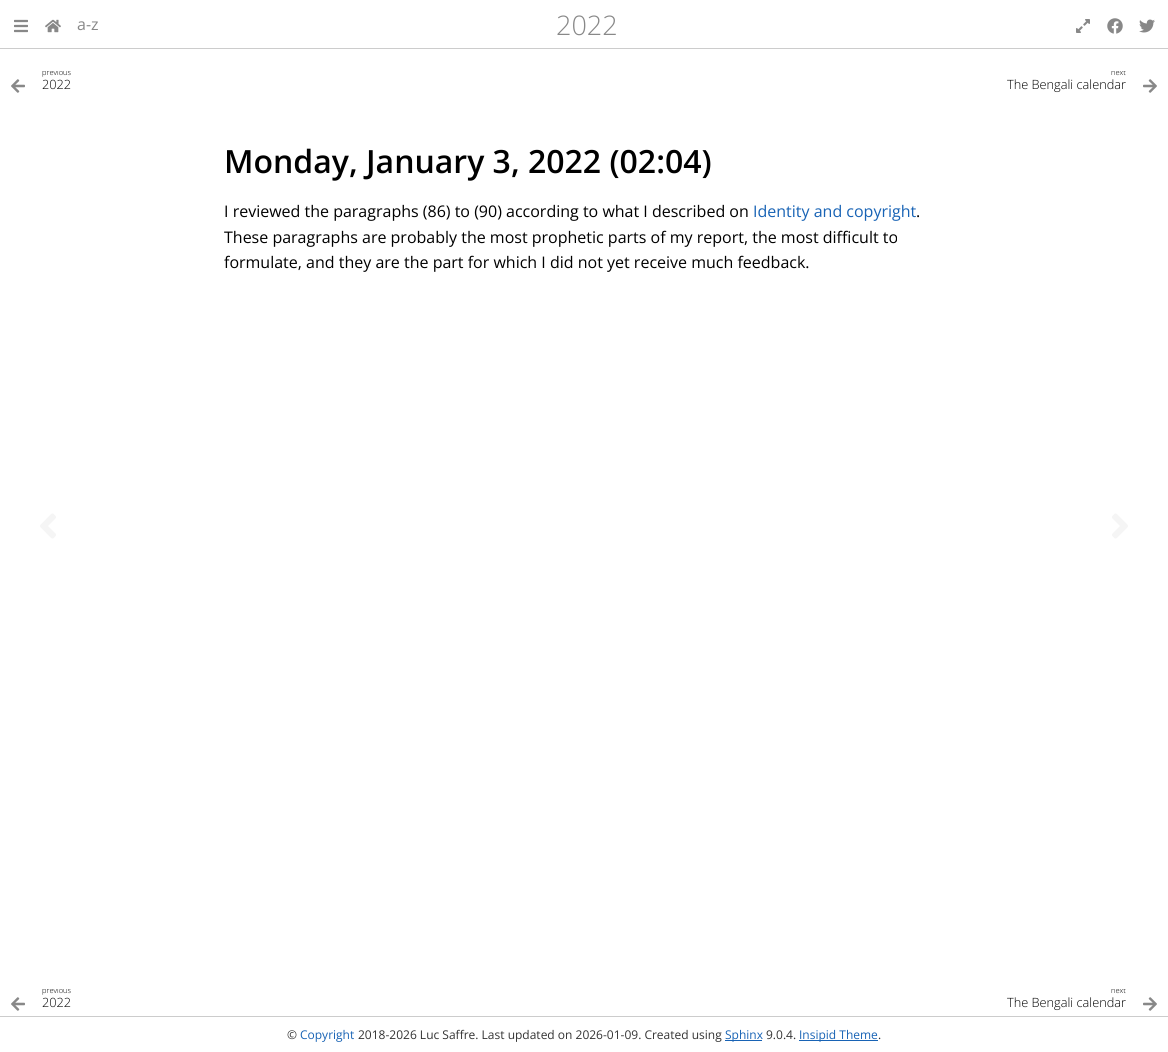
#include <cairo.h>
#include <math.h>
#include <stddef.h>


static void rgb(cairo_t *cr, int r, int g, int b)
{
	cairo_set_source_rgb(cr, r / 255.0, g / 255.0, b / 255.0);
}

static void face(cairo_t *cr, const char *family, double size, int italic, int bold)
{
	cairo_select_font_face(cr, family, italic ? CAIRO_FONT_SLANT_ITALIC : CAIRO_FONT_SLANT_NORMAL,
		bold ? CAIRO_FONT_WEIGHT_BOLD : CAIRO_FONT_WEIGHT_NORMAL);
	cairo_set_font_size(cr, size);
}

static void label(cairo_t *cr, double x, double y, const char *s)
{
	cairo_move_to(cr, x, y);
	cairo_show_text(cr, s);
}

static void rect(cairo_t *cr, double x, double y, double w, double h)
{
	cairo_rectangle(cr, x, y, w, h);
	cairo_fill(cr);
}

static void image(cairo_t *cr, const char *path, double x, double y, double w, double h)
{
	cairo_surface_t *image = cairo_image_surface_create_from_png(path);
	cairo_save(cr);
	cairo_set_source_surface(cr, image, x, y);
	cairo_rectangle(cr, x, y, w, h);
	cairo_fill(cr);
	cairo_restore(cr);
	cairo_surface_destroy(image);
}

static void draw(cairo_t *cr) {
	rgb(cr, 255, 255, 255);
	cairo_paint(cr);
	rgb(cr, 204, 204, 204);
	rect(cr, 0, 48, 1168, 1);
	image(cr, "image0.png", 14, 19, 14, 14);
	image(cr, "image1.png", 45, 19, 16, 14);
	face(cr, "Open Sans", 16, 0, 0);
	rgb(cr, 136, 136, 136);
	label(cr, 77, 30, "a-z");
	face(cr, "Open Sans Light", 27, 0, 0);
	label(cr, 556, 35, "2022");
	image(cr, "image2.png", 1076, 19, 14, 14);
	image(cr, "image3.png", 1107, 18, 16, 16);
	image(cr, "image4.png", 1139, 19, 16, 14);
	image(cr, "image5.png", 11, 79, 14, 14);
	cairo_save(cr);
	cairo_rectangle(cr, 42, 71, 542, 27);
	cairo_clip(cr);
	face(cr, "Open Sans Light", 7.5, 0, 0);
	rgb(cr, 0, 0, 0);
	label(cr, 42, 75, "previous");
	cairo_restore(cr);
	face(cr, "Open Sans Light", 12.75, 0, 0);
	rgb(cr, 0, 0, 0);
	label(cr, 42, 89, "2022");
	cairo_save(cr);
	cairo_rectangle(cr, 584, 71, 542, 27);
	cairo_clip(cr);
	face(cr, "Open Sans Light", 7.5, 0, 0);
	label(cr, 1111, 75, "next");
	cairo_restore(cr);
	label(cr, 1007, 89, "The Bengali calendar");
	image(cr, "image6.png", 1143, 79, 14, 14);
	face(cr, "Open Sans SemiBold", 32, 0, 0);
	label(cr, 224, 173, "Monday, January 3, 2022 (02:04)");
	face(cr, "Open Sans", 16, 0, 0);
	label(cr, 224, 217, "I reviewed the paragraphs (86) to (90) according to what I described on");
	rgb(cr, 24, 99, 181);
	label(cr, 753, 217, "Identity and copyright");
	rgb(cr, 0, 0, 0);
	label(cr, 916, 217, ".");
	label(cr, 224, 243, "These paragraphs are probably the most prophetic parts of my report, the most difficult to");
	label(cr, 224, 268, "formulate, and they are the part for which I did not yet receive much feedback.");
	image(cr, "image7.png", 40, 513, 16, 26);
	image(cr, "image8.png", 1112, 513, 16, 26);
	image(cr, "image5.png", 11, 997, 14, 14);
	cairo_save(cr);
	cairo_rectangle(cr, 42, 989, 542, 27);
	cairo_clip(cr);
	face(cr, "Open Sans Light", 7.5, 0, 0);
	label(cr, 42, 993, "previous");
	cairo_restore(cr);
	face(cr, "Open Sans Light", 12.75, 0, 0);
	label(cr, 42, 1007, "2022");
	cairo_save(cr);
	cairo_rectangle(cr, 584, 989, 542, 27);
	cairo_clip(cr);
	face(cr, "Open Sans Light", 7.5, 0, 0);
	label(cr, 1111, 993, "next");
	cairo_restore(cr);
	label(cr, 1007, 1007, "The Bengali calendar");
	image(cr, "image6.png", 1143, 997, 14, 14);
	rgb(cr, 204, 204, 204);
	rect(cr, 0, 1016, 1168, 1);
	face(cr, "Open Sans", 12, 0, 0);
	rgb(cr, 51, 51, 51);
	label(cr, 287, 1039, "©");
	rgb(cr, 24, 99, 181);
	label(cr, 300, 1039, "Copyright");
	rgb(cr, 51, 51, 51);
	label(cr, 358, 1039, "2018-2026 Luc Saffre. Last updated on 2026-01-09. Created using");
	rgb(cr, 24, 99, 181);
	rect(cr, 725, 1040, 37, 1);
	label(cr, 725, 1039, "Sphinx");
	rgb(cr, 51, 51, 51);
	label(cr, 766, 1039, "9.0.4.");
	rgb(cr, 24, 99, 181);
	rect(cr, 799, 1040, 79, 1);
	label(cr, 799, 1039, "Insipid Theme");
	rgb(cr, 51, 51, 51);
	label(cr, 878, 1039, ".");
}

int main(void) {
	cairo_surface_t *surface = cairo_image_surface_create(CAIRO_FORMAT_RGB24, 1168, 1052);
	cairo_t *cr = cairo_create(surface);
	cairo_font_options_t *options = cairo_font_options_create();
	cairo_font_options_set_hint_metrics(options, CAIRO_HINT_METRICS_OFF);
	cairo_font_options_set_hint_style(options, CAIRO_HINT_STYLE_NONE);
	cairo_set_font_options(cr, options);
	cairo_set_miter_limit(cr, 4);
	draw(cr);
	cairo_surface_write_to_png(surface, "render.png");
	cairo_font_options_destroy(options);
	cairo_destroy(cr);
	cairo_surface_destroy(surface);
	return 0;
}
